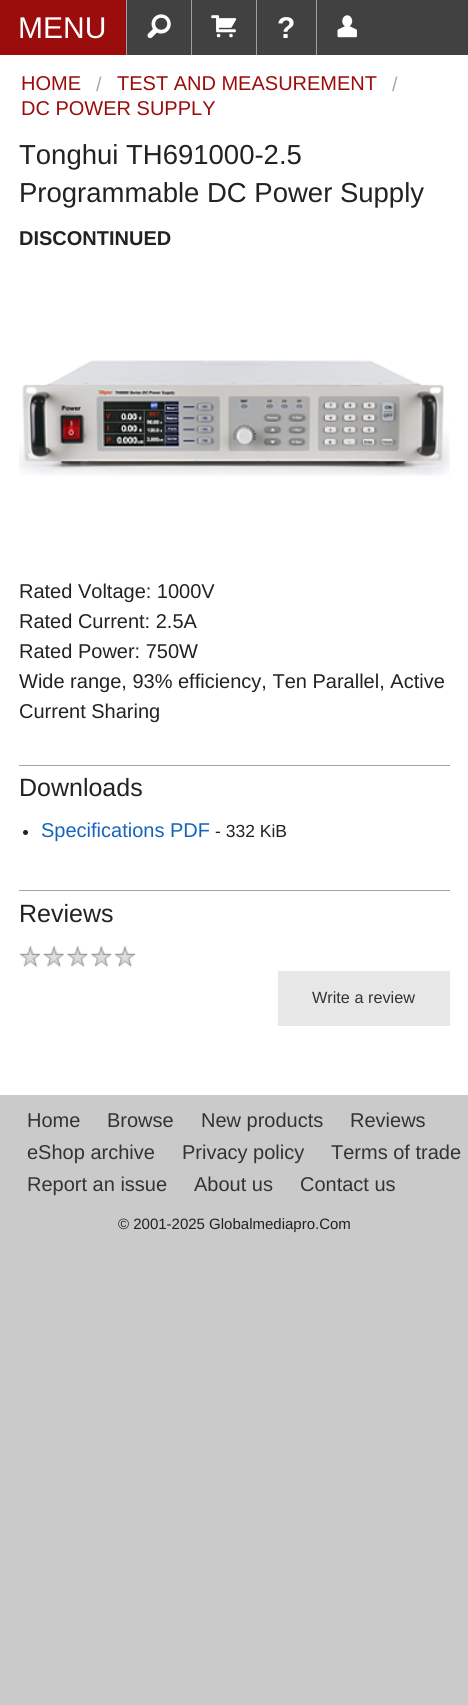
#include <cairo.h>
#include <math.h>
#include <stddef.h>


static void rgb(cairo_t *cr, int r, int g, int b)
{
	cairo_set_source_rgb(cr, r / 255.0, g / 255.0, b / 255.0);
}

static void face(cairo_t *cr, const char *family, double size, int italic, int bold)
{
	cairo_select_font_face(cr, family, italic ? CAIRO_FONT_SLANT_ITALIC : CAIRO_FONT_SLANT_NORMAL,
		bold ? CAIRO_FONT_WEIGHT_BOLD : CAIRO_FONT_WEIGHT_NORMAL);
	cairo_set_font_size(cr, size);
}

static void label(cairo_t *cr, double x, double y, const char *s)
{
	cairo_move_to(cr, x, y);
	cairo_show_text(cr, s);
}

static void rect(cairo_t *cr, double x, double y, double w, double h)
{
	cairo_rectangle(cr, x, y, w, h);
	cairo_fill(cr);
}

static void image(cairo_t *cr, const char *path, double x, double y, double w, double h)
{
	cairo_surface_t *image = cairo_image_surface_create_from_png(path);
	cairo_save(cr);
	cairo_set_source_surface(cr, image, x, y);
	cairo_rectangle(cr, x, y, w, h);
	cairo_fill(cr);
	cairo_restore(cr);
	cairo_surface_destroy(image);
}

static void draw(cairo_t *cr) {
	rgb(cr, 202, 202, 202);
	cairo_paint(cr);
	rgb(cr, 65, 65, 65);
	rect(cr, 127, 0, 341, 55);
	rgb(cr, 155, 12, 12);
	rect(cr, 0, 0, 126, 55);
	face(cr, "Liberation Sans", 30, 0, 0);
	rgb(cr, 255, 255, 255);
	label(cr, 18, 38, "MENU");
	rgb(cr, 160, 160, 160);
	rect(cr, 126, 0, 1, 55);
	image(cr, "image0.png", 147, 14, 24, 25);
	rect(cr, 191, 0, 1, 55);
	image(cr, "image1.png", 211, 15, 26, 23);
	rect(cr, 256, 0, 1, 55);
	face(cr, "Liberation Sans", 30, 0, 1);
	rgb(cr, 255, 255, 255);
	label(cr, 277, 38, "?");
	rgb(cr, 160, 160, 160);
	rect(cr, 316, 0, 1, 55);
	image(cr, "image2.png", 337, 15, 20, 23);
	rgb(cr, 255, 255, 255);
	rect(cr, 0, 55, 468, 1040);
	face(cr, "Liberation Sans", 20, 0, 0);
	rgb(cr, 155, 12, 12);
	label(cr, 21, 90, "HOME");
	rgb(cr, 170, 170, 170);
	label(cr, 96, 91, "/");
	rgb(cr, 155, 12, 12);
	label(cr, 117, 90, "TEST AND MEASUREMENT");
	rgb(cr, 170, 170, 170);
	label(cr, 392, 91, "/");
	rgb(cr, 155, 12, 12);
	label(cr, 21, 115, "DC POWER SUPPLY");
	face(cr, "Liberation Sans", 27.5, 0, 0);
	rgb(cr, 34, 34, 34);
	label(cr, 19, 164, "Tonghui TH691000-2.5");
	label(cr, 19, 202, "Programmable DC Power Supply");
	face(cr, "Liberation Sans", 20, 0, 1);
	label(cr, 19, 245, "DISCONTINUED");
	image(cr, "image3.png", 19, 360, 431, 116);
	face(cr, "Liberation Sans", 20, 0, 0);
	label(cr, 19, 598, "Rated Voltage: 1000V");
	label(cr, 19, 628, "Rated Current: 2.5A");
	label(cr, 19, 658, "Rated Power: 750W");
	label(cr, 19, 688, "Wide range, 93% efficiency, Ten Parallel, Active");
	label(cr, 19, 718, "Current Sharing");
	rgb(cr, 162, 162, 162);
	rect(cr, 19, 765, 431, 1);
	face(cr, "Liberation Sans", 25, 0, 0);
	rgb(cr, 34, 34, 34);
	label(cr, 19, 796, "Downloads");
	cairo_new_path(cr);
	cairo_arc(cr, 25.5, 832.5, 2.5, 0, 2 * M_PI);
	cairo_fill(cr);
	face(cr, "Liberation Sans", 20, 0, 0);
	rgb(cr, 20, 100, 189);
	label(cr, 41, 837, "Specifications PDF");
	face(cr, "Liberation Sans", 17.5, 0, 0);
	rgb(cr, 34, 34, 34);
	label(cr, 215, 837, "- 332 KiB");
	rgb(cr, 162, 162, 162);
	rect(cr, 19, 890, 431, 1);
	face(cr, "Liberation Sans", 25, 0, 0);
	rgb(cr, 34, 34, 34);
	label(cr, 19, 922, "Reviews");
	image(cr, "image4.png", 19, 946, 117, 22);
	rgb(cr, 231, 231, 231);
	rect(cr, 278, 971, 172, 55);
	face(cr, "Liberation Sans", 16.25, 0, 0);
	rgb(cr, 51, 51, 51);
	label(cr, 312, 1003, "Write a review");
	face(cr, "Liberation Sans", 20, 0, 0);
	label(cr, 27, 1127, "Home");
	label(cr, 107, 1127, "Browse");
	label(cr, 201, 1127, "New products");
	label(cr, 350, 1127, "Reviews");
	label(cr, 27, 1159, "eShop archive");
	label(cr, 182, 1159, "Privacy policy");
	label(cr, 331, 1159, "Terms of trade");
	label(cr, 27, 1191, "Report an issue");
	label(cr, 194, 1191, "About us");
	label(cr, 300, 1191, "Contact us");
	face(cr, "Liberation Sans", 15, 0, 0);
	rgb(cr, 34, 34, 34);
	label(cr, 118, 1229, "© 2001-2025 Globalmediapro.Com");
}

int main(void) {
	cairo_surface_t *surface = cairo_image_surface_create(CAIRO_FORMAT_RGB24, 468, 1705);
	cairo_t *cr = cairo_create(surface);
	cairo_font_options_t *options = cairo_font_options_create();
	cairo_font_options_set_hint_metrics(options, CAIRO_HINT_METRICS_OFF);
	cairo_font_options_set_hint_style(options, CAIRO_HINT_STYLE_NONE);
	cairo_set_font_options(cr, options);
	cairo_set_miter_limit(cr, 4);
	draw(cr);
	cairo_surface_write_to_png(surface, "render.png");
	cairo_font_options_destroy(options);
	cairo_destroy(cr);
	cairo_surface_destroy(surface);
	return 0;
}
